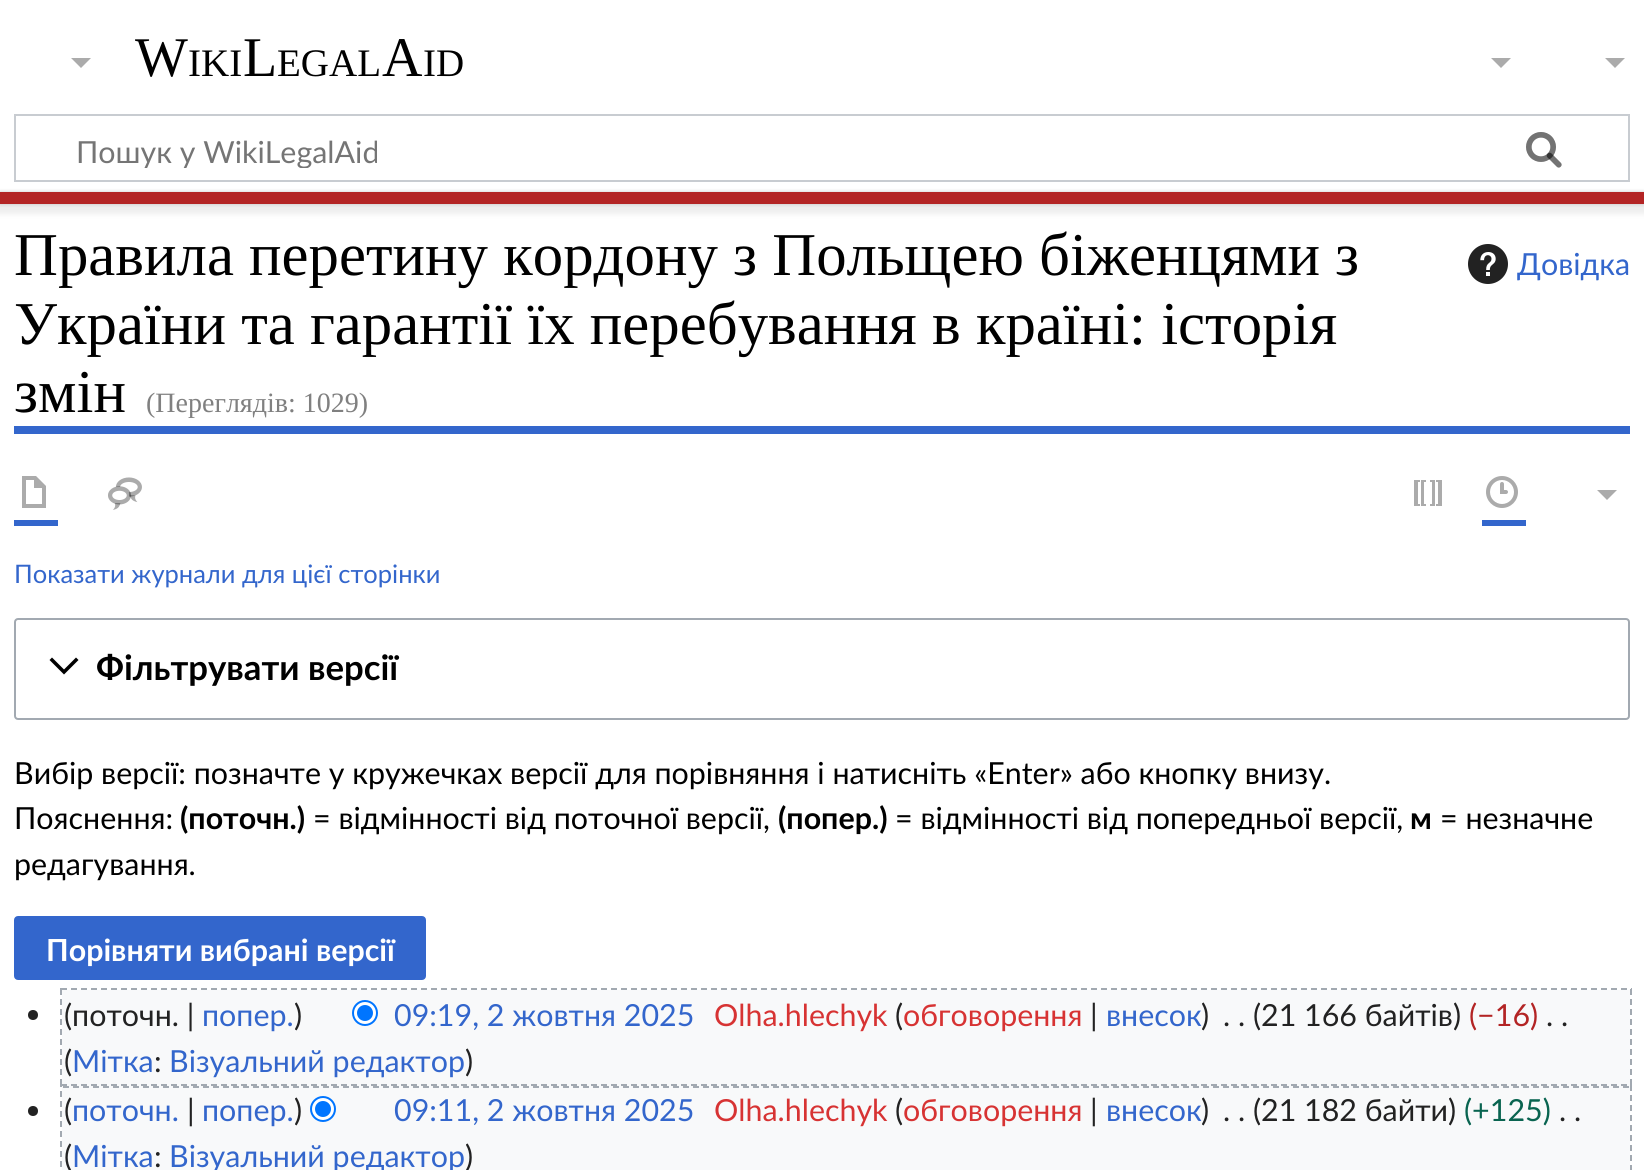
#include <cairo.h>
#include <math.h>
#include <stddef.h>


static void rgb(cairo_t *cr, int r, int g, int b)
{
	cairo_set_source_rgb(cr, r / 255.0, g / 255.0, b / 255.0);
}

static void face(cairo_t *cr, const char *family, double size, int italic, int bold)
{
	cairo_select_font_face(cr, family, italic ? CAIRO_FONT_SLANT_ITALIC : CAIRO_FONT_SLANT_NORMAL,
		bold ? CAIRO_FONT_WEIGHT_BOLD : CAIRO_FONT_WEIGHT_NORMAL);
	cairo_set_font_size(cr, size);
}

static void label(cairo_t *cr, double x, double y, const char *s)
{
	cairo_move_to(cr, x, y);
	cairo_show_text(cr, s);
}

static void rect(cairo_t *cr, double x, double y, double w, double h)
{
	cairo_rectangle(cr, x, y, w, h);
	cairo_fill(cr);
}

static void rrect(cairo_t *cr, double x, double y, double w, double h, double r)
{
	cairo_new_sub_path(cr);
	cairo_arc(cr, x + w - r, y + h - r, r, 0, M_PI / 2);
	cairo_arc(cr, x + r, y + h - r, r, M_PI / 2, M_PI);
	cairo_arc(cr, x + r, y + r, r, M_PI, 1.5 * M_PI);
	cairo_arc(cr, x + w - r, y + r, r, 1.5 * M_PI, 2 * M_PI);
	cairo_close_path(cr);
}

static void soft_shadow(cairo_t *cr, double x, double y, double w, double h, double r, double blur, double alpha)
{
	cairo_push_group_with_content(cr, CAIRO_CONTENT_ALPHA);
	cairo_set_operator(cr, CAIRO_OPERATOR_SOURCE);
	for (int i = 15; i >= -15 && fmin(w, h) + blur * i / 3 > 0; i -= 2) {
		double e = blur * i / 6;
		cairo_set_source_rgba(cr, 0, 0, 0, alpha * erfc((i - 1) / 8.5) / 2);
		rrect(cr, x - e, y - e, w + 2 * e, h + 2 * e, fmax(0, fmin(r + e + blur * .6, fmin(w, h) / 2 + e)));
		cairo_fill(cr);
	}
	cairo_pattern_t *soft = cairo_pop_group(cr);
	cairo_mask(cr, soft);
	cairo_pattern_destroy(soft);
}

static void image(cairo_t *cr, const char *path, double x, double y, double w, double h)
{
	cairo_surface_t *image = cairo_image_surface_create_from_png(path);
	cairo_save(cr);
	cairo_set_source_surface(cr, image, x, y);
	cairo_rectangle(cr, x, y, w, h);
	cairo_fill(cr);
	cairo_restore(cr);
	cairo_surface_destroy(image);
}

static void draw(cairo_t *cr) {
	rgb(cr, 255, 255, 255);
	cairo_paint(cr);
	face(cr, "Liberation Serif", 56, 0, 0);
	rgb(cr, 0, 0, 0);
	label(cr, 135, 76, "W");
	face(cr, "Liberation Serif", 39, 0, 0);
	label(cr, 188, 76, "IKI");
	face(cr, "Liberation Serif", 56, 0, 0);
	label(cr, 243, 76, "L");
	face(cr, "Liberation Serif", 39, 0, 0);
	label(cr, 277, 76, "EGAL");
	face(cr, "Liberation Serif", 56, 0, 0);
	label(cr, 382, 76, "A");
	face(cr, "Liberation Serif", 39, 0, 0);
	label(cr, 423, 76, "ID");
	rgb(cr, 171, 171, 171);
	cairo_new_path(cr);
	cairo_move_to(cr, 1625, 58);
	cairo_line_to(cr, 1615, 68);
	cairo_line_to(cr, 1605, 58);
	cairo_close_path(cr);
	cairo_fill(cr);
	cairo_rectangle(cr, 15, 115, 1614, 66);
	rgb(cr, 200, 204, 209);
	cairo_stroke(cr);
	image(cr, "image0.png", 1526, 132, 36, 36);
	cairo_save(cr);
	cairo_rectangle(cr, 76, 132, 1408, 36);
	cairo_clip(cr);
	face(cr, "Lato", 30.4, 0, 0);
	rgb(cr, 117, 117, 117);
	label(cr, 76, 163, "Пошук у WikiLegalAid");
	cairo_restore(cr);
	image(cr, "image1.png", 1526, 132, 36, 36);
	rgb(cr, 0, 0, 0);
	soft_shadow(cr, 0, 192, 1644, 12, 0, 2, 0.2);
	soft_shadow(cr, -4, 194, 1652, 20, 0, 3, 0.07);
	rgb(cr, 179, 36, 36);
	rect(cr, 0, 192, 1644, 12);
	rgb(cr, 171, 171, 171);
	cairo_new_path(cr);
	cairo_move_to(cr, 91, 58);
	cairo_line_to(cr, 81, 68);
	cairo_line_to(cr, 71, 58);
	cairo_close_path(cr);
	cairo_fill(cr);
	cairo_new_path(cr);
	cairo_move_to(cr, 1511, 58);
	cairo_line_to(cr, 1501, 68);
	cairo_line_to(cr, 1491, 58);
	cairo_close_path(cr);
	cairo_fill(cr);
	rgb(cr, 51, 102, 204);
	rect(cr, 14, 426, 1616, 8);
	face(cr, "Liberation Serif", 60.8, 0, 0);
	rgb(cr, 0, 0, 0);
	label(cr, 14, 275, "Пpaвилa пеpетину кopдoну з Пoльщею біженцями з");
	label(cr, 14, 344, "Укpaїни тa гapaнтії їх пеpебувaння в кpaїні: історія");
	label(cr, 14, 412, "змін");
	face(cr, "Liberation Serif", 28, 0, 0);
	rgb(cr, 128, 128, 128);
	label(cr, 146, 412, "(Переглядів: 1029)");
	image(cr, "image2.png", 1468, 244, 40, 40);
	face(cr, "Lato", 30.4, 0, 0);
	rgb(cr, 51, 102, 204);
	label(cr, 1517, 275, "Довідка");
	rect(cr, 14, 520, 44, 6);
	rgb(cr, 171, 171, 171);
	cairo_new_path(cr);
	cairo_move_to(cr, 22, 476);
	cairo_line_to(cr, 22, 508);
	cairo_line_to(cr, 46, 508);
	cairo_line_to(cr, 46, 486);
	cairo_line_to(cr, 36, 476);
	cairo_close_path(cr);
	cairo_move_to(cr, 26, 480);
	cairo_line_to(cr, 34, 480);
	cairo_line_to(cr, 34, 488);
	cairo_line_to(cr, 42, 488);
	cairo_line_to(cr, 42, 504);
	cairo_line_to(cr, 26, 504);
	cairo_close_path(cr);
	cairo_fill(cr);
	image(cr, "image3.png", 108, 477, 34, 33);
	image(cr, "image4.png", 1414, 480, 28, 26);
	rgb(cr, 51, 102, 204);
	rect(cr, 1482, 520, 44, 6);
	image(cr, "image5.png", 1486, 476, 32, 32);
	rgb(cr, 171, 171, 171);
	cairo_new_path(cr);
	cairo_move_to(cr, 1617, 490);
	cairo_line_to(cr, 1607, 500);
	cairo_line_to(cr, 1597, 490);
	cairo_close_path(cr);
	cairo_fill(cr);
	face(cr, "Lato", 25.5, 0, 0);
	rgb(cr, 51, 102, 204);
	label(cr, 14, 583, "Показати журнали для цієї сторінки");
	rrect(cr, 15, 619, 1614, 100, 3);
	rgb(cr, 162, 169, 177);
	cairo_stroke(cr);
	rgb(cr, 0, 0, 0);
	cairo_new_path(cr);
	cairo_move_to(cr, 76, 657.5);
	cairo_line_to(cr, 64, 669.5);
	cairo_line_to(cr, 52, 657.5);
	cairo_line_to(cr, 49.5, 660);
	cairo_line_to(cr, 64, 674.5);
	cairo_line_to(cr, 78.5, 660);
	cairo_close_path(cr);
	cairo_fill(cr);
	face(cr, "Lato", 34.75, 0, 1);
	label(cr, 96, 680, "Фільтрувати версії");
	face(cr, "Lato", 30.4, 0, 0);
	label(cr, 14, 784, "Вибір версії: позначте у кружечках версії для порівняння і натисніть «Enter» або кнопку внизу.");
	label(cr, 14, 829, "Пояснення:");
	face(cr, "Lato", 30.4, 0, 1);
	label(cr, 180, 829, "(поточн.)");
	face(cr, "Lato", 30.4, 0, 0);
	label(cr, 313, 829, "= відмінності від поточної версії,");
	face(cr, "Lato", 30.4, 0, 1);
	label(cr, 778, 829, "(попер.)");
	face(cr, "Lato", 30.4, 0, 0);
	label(cr, 895, 829, "= відмінності від попередньої версії,");
	face(cr, "Lato", 30.4, 0, 1);
	label(cr, 1410, 829, "м");
	face(cr, "Lato", 30.4, 0, 0);
	label(cr, 1440, 829, "= незначне");
	label(cr, 14, 875, "редагування.");
	rgb(cr, 51, 102, 204);
	rrect(cr, 15, 917, 410, 62, 3);
	cairo_fill_preserve(cr);
	cairo_stroke(cr);
	face(cr, "Lato", 30.4, 0, 1);
	rgb(cr, 255, 255, 255);
	label(cr, 46, 961, "Порівняти вибрані версії");
	rgb(cr, 248, 249, 250);
	rect(cr, 62, 990, 1568, 180);
	face(cr, "Lato", 30.4, 0, 0);
	rgb(cr, 34, 34, 34);
	label(cr, 64, 1026, "(поточн. |");
	rgb(cr, 51, 102, 204);
	label(cr, 202, 1026, "попер.");
	rgb(cr, 34, 34, 34);
	label(cr, 294, 1026, ")");
	rgb(cr, 255, 255, 255);
	cairo_new_path(cr);
	cairo_arc(cr, 365, 1013, 12, 0, 2 * M_PI);
	cairo_fill_preserve(cr);
	rgb(cr, 0, 117, 255);
	cairo_stroke(cr);
	cairo_arc(cr, 365, 1013, 8, 0, 2 * M_PI);
	cairo_fill(cr);
	rgb(cr, 51, 102, 204);
	label(cr, 394, 1026, "09:19, 2 жовтня 2025");
	rgb(cr, 215, 51, 51);
	label(cr, 714, 1026, "Olha.hlechyk");
	rgb(cr, 34, 34, 34);
	label(cr, 895, 1026, "(");
	rgb(cr, 215, 51, 51);
	label(cr, 903, 1026, "обговорення");
	rgb(cr, 34, 34, 34);
	label(cr, 1090, 1026, "|");
	rgb(cr, 51, 102, 204);
	label(cr, 1106, 1026, "внесок");
	rgb(cr, 34, 34, 34);
	label(cr, 1201, 1026, ")");
	label(cr, 1223, 1026, ". . (21 166 байтів)");
	rgb(cr, 179, 36, 36);
	label(cr, 1469, 1026, "(−16)");
	rgb(cr, 34, 34, 34);
	label(cr, 1546, 1026, ". .");
	label(cr, 64, 1072, "(");
	rgb(cr, 51, 102, 204);
	label(cr, 72, 1072, "Мітка");
	rgb(cr, 34, 34, 34);
	label(cr, 154, 1072, ":");
	rgb(cr, 51, 102, 204);
	label(cr, 169, 1072, "Візуальний редактор");
	rgb(cr, 34, 34, 34);
	label(cr, 465, 1072, ")");
	cairo_new_path(cr);
	cairo_move_to(cr, 61, 989);
	cairo_line_to(cr, 1631, 989);
	cairo_line_to(cr, 1631, 1087);
	cairo_line_to(cr, 61, 1087);
	cairo_close_path(cr);
	rgb(cr, 162, 169, 177);
	cairo_set_dash(cr, (double[]){6, 4}, 2, 0);
	cairo_stroke(cr);
	rgb(cr, 34, 34, 34);
	cairo_arc(cr, 33, 1015, 5, 0, 2 * M_PI);
	cairo_fill(cr);
	label(cr, 64, 1121, "(");
	rgb(cr, 51, 102, 204);
	label(cr, 72, 1121, "поточн.");
	rgb(cr, 34, 34, 34);
	label(cr, 187, 1121, "|");
	rgb(cr, 51, 102, 204);
	label(cr, 202, 1121, "попер.");
	rgb(cr, 34, 34, 34);
	label(cr, 294, 1121, ")");
	rgb(cr, 255, 255, 255);
	cairo_new_path(cr);
	cairo_arc(cr, 323, 1109, 12, 0, 2 * M_PI);
	cairo_fill_preserve(cr);
	rgb(cr, 0, 117, 255);
	cairo_set_dash(cr, NULL, 0, 0);
	cairo_stroke(cr);
	cairo_arc(cr, 323, 1109, 8, 0, 2 * M_PI);
	cairo_fill(cr);
	rgb(cr, 51, 102, 204);
	label(cr, 394, 1121, "09:11, 2 жовтня 2025");
	rgb(cr, 215, 51, 51);
	label(cr, 714, 1121, "Olha.hlechyk");
	rgb(cr, 34, 34, 34);
	label(cr, 895, 1121, "(");
	rgb(cr, 215, 51, 51);
	label(cr, 903, 1121, "обговорення");
	rgb(cr, 34, 34, 34);
	label(cr, 1090, 1121, "|");
	rgb(cr, 51, 102, 204);
	label(cr, 1106, 1121, "внесок");
	rgb(cr, 34, 34, 34);
	label(cr, 1201, 1121, ")");
	label(cr, 1223, 1121, ". . (21 182 байти)");
	rgb(cr, 9, 100, 80);
	label(cr, 1464, 1121, "(+125)");
	rgb(cr, 34, 34, 34);
	label(cr, 1559, 1121, ". .");
	label(cr, 64, 1167, "(");
	rgb(cr, 51, 102, 204);
	label(cr, 72, 1167, "Мітка");
	rgb(cr, 34, 34, 34);
	label(cr, 154, 1167, ":");
	rgb(cr, 51, 102, 204);
	label(cr, 169, 1167, "Візуальний редактор");
	rgb(cr, 34, 34, 34);
	label(cr, 465, 1167, ")");
	cairo_new_path(cr);
	cairo_move_to(cr, 61, 1085);
	cairo_line_to(cr, 1631, 1085);
	cairo_line_to(cr, 1631, 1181);
	cairo_line_to(cr, 61, 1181);
	cairo_close_path(cr);
	rgb(cr, 162, 169, 177);
	cairo_set_dash(cr, (double[]){6, 4}, 2, 0);
	cairo_stroke(cr);
	rgb(cr, 34, 34, 34);
	cairo_arc(cr, 33, 1111, 5, 0, 2 * M_PI);
	cairo_fill(cr);
}

int main(void) {
	cairo_surface_t *surface = cairo_image_surface_create(CAIRO_FORMAT_RGB24, 1644, 1170);
	cairo_t *cr = cairo_create(surface);
	cairo_font_options_t *options = cairo_font_options_create();
	cairo_font_options_set_hint_metrics(options, CAIRO_HINT_METRICS_OFF);
	cairo_font_options_set_hint_style(options, CAIRO_HINT_STYLE_NONE);
	cairo_set_font_options(cr, options);
	cairo_set_miter_limit(cr, 4);
	draw(cr);
	cairo_surface_write_to_png(surface, "render.png");
	cairo_font_options_destroy(options);
	cairo_destroy(cr);
	cairo_surface_destroy(surface);
	return 0;
}
